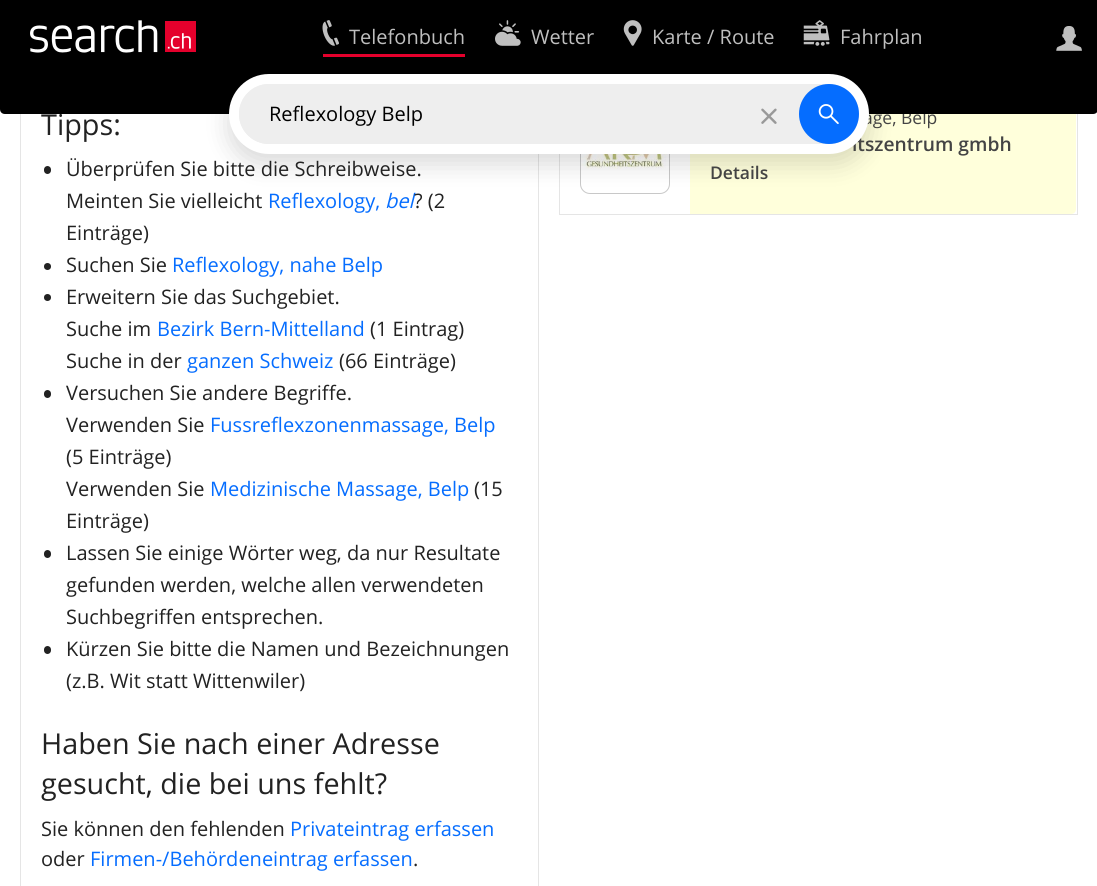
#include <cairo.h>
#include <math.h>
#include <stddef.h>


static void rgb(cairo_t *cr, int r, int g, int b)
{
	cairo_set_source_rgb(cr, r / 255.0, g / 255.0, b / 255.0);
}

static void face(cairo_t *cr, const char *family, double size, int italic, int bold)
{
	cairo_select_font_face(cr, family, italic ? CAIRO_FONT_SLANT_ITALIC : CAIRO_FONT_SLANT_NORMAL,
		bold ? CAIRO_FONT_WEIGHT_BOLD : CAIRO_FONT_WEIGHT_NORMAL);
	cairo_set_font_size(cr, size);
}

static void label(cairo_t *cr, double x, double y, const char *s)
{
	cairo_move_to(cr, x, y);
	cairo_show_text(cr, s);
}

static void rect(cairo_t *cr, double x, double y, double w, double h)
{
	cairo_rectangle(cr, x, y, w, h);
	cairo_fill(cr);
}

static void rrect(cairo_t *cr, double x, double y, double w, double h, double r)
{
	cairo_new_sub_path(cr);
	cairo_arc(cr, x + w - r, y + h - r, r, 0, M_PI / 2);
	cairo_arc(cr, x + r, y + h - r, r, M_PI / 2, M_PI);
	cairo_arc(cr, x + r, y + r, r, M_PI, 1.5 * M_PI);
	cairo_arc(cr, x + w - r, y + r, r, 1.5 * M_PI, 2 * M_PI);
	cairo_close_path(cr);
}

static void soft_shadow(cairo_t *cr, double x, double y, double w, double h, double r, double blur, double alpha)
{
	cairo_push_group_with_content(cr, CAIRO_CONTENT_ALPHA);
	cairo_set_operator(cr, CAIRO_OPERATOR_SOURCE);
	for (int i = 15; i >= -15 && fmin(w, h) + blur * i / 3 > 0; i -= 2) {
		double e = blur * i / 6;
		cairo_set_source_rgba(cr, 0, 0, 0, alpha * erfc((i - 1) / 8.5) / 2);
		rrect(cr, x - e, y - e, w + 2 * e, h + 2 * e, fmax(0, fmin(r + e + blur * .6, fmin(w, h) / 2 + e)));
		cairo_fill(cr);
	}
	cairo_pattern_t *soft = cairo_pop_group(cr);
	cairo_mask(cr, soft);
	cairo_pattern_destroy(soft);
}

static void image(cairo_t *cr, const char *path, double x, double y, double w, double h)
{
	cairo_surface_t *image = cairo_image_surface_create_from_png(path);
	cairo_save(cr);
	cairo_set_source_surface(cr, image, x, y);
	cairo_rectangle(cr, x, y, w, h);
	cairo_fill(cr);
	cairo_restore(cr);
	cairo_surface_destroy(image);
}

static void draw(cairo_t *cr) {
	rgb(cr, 255, 255, 255);
	cairo_paint(cr);
	cairo_rectangle(cr, 20.5, -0.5, 518, 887);
	rgb(cr, 229, 229, 229);
	cairo_set_line_width(cr, 1);
	cairo_stroke(cr);
	cairo_rectangle(cr, 559.5, -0.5, 518, 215);
	cairo_stroke(cr);
	rgb(cr, 0, 0, 0);
	rect(cr, 0, 0, 1097, 74);
	image(cr, "image0.png", 30, 20, 166, 33);
	rgb(cr, 228, 0, 44);
	rect(cr, 323, 54, 142, 3);
	image(cr, "image1.png", 322, 20, 17, 26);
	face(cr, "Open Sans", 20, 0, 0);
	rgb(cr, 191, 191, 191);
	label(cr, 349, 44, "Telefonbuch");
	image(cr, "image2.png", 495, 20, 26, 26);
	label(cr, 531, 44, "Wetter");
	image(cr, "image3.png", 623, 20, 19, 26);
	label(cr, 652, 44, "Karte / Route");
	image(cr, "image4.png", 803, 20, 27, 26);
	label(cr, 840, 44, "Fahrplan");
	image(cr, "image5.png", 1056, 26, 26, 25);
	face(cr, "Open Sans", 28.75, 0, 0);
	rgb(cr, 34, 34, 34);
	label(cr, 41, 135, "Tipps:");
	rrect(cr, 580.5, 104.5, 89, 89, 9.5);
	rgb(cr, 200, 200, 200);
	cairo_stroke(cr);
	rgb(cr, 255, 255, 219);
	cairo_new_path(cr);
	cairo_move_to(cr, 690, 84);
	cairo_line_to(cr, 1076, 84);
	cairo_line_to(cr, 1076, 209);
	cairo_curve_to(cr, 1076, 212, 1074, 214, 1071, 214);
	cairo_line_to(cr, 690, 214);
	cairo_close_path(cr);
	cairo_fill(cr);
	face(cr, "Open Sans", 17.5, 0, 0);
	rgb(cr, 68, 68, 68);
	label(cr, 863, 124, "age, Belp");
	rgb(cr, 0, 0, 0);
	cairo_new_path(cr);
	cairo_move_to(cr, 0, 74);
	cairo_line_to(cr, 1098, 74);
	cairo_line_to(cr, 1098, 109);
	cairo_curve_to(cr, 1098, 112, 1096, 114, 1093, 114);
	cairo_line_to(cr, 5, 114);
	cairo_curve_to(cr, 2, 114, 0, 112, 0, 109);
	cairo_close_path(cr);
	cairo_fill(cr);
	image(cr, "image8.png", 581, 154, 88, 15);
	rgb(cr, 0, 0, 0);
	soft_shadow(cr, 229, 84, 640, 80, 40, 12.5, 0.15);
	face(cr, "Open Sans SemiBold", 19.25, 0, 0);
	rgb(cr, 68, 68, 68);
	label(cr, 852, 151, "itszentrum gmbh");
	rgb(cr, 255, 255, 255);
	rrect(cr, 229, 74, 640, 80, 40);
	cairo_fill(cr);
	rgb(cr, 238, 238, 238);
	rrect(cr, 239, 84, 620, 60, 30);
	cairo_fill(cr);
	rrect(cr, 239, 84, 500, 60, 30);
	cairo_fill(cr);
	face(cr, "Open Sans", 20, 0, 0);
	rgb(cr, 0, 0, 0);
	label(cr, 269, 121, "Reflexology Belp");
	image(cr, "image6.png", 761, 108, 16, 16);
	rgb(cr, 5, 109, 255);
	cairo_arc(cr, 829, 114, 30, 0, 2 * M_PI);
	cairo_fill(cr);
	image(cr, "image7.png", 818, 104, 21, 20);
	rgb(cr, 34, 34, 34);
	rrect(cr, 44, 166, 7, 8, 3.5);
	cairo_fill(cr);
	label(cr, 66, 176, "Überprüfen Sie bitte die Schreibweise.");
	label(cr, 66, 208, "Meinten Sie vielleicht");
	rgb(cr, 5, 109, 255);
	label(cr, 268, 208, "Reflexology,");
	face(cr, "Open Sans", 20, 1, 0);
	label(cr, 385, 208, "bel");
	face(cr, "Open Sans", 20, 0, 0);
	rgb(cr, 34, 34, 34);
	label(cr, 414, 208, "? (2");
	label(cr, 66, 240, "Einträge)");
	cairo_new_path(cr);
	cairo_arc(cr, 47.5, 266.5, 3.5, 0, 2 * M_PI);
	cairo_fill(cr);
	label(cr, 66, 272, "Suchen Sie");
	rgb(cr, 5, 109, 255);
	label(cr, 172, 272, "Reflexology, nahe Belp");
	rgb(cr, 34, 34, 34);
	cairo_new_path(cr);
	cairo_arc(cr, 47.5, 297.5, 3.5, 0, 2 * M_PI);
	cairo_fill(cr);
	label(cr, 66, 304, "Erweitern Sie das Suchgebiet.");
	label(cr, 66, 336, "Suche im");
	rgb(cr, 5, 109, 255);
	label(cr, 157, 336, "Bezirk Bern-Mittelland");
	rgb(cr, 34, 34, 34);
	label(cr, 370, 336, "(1 Eintrag)");
	label(cr, 66, 368, "Suche in der");
	rgb(cr, 5, 109, 255);
	label(cr, 187, 368, "ganzen Schweiz");
	rgb(cr, 34, 34, 34);
	label(cr, 339, 368, "(66 Einträge)");
	rrect(cr, 44, 390, 7, 8, 3.5);
	cairo_fill(cr);
	label(cr, 66, 400, "Versuchen Sie andere Begriffe.");
	label(cr, 66, 432, "Verwenden Sie");
	rgb(cr, 5, 109, 255);
	label(cr, 210, 432, "Fussreflexzonenmassage, Belp");
	rgb(cr, 34, 34, 34);
	label(cr, 66, 464, "(5 Einträge)");
	label(cr, 66, 496, "Verwenden Sie");
	rgb(cr, 5, 109, 255);
	label(cr, 210, 496, "Medizinische Massage, Belp");
	rgb(cr, 34, 34, 34);
	label(cr, 474, 496, "(15");
	label(cr, 66, 528, "Einträge)");
	rrect(cr, 44, 550, 7, 8, 3.5);
	cairo_fill(cr);
	label(cr, 66, 560, "Lassen Sie einige Wörter weg, da nur Resultate");
	label(cr, 66, 592, "gefunden werden, welche allen verwendeten");
	label(cr, 66, 624, "Suchbegriffen entsprechen.");
	rrect(cr, 44, 646, 7, 8, 3.5);
	cairo_fill(cr);
	label(cr, 66, 656, "Kürzen Sie bitte die Namen und Bezeichnungen");
	label(cr, 66, 688, "(z.B. Wit statt Wittenwiler)");
	face(cr, "Open Sans", 28.75, 0, 0);
	label(cr, 41, 754, "Haben Sie nach einer Adresse");
	label(cr, 41, 794, "gesucht, die bei uns fehlt?");
	face(cr, "Open Sans", 20, 0, 0);
	label(cr, 41, 836, "Sie können den fehlenden");
	rgb(cr, 5, 109, 255);
	label(cr, 290, 836, "Privateintrag erfassen");
	rgb(cr, 34, 34, 34);
	label(cr, 41, 866, "oder");
	rgb(cr, 5, 109, 255);
	label(cr, 90, 866, "Firmen-/Behördeneintrag erfassen");
	rgb(cr, 34, 34, 34);
	label(cr, 413, 866, ".");
	face(cr, "Open Sans SemiBold", 17.5, 0, 0);
	rgb(cr, 68, 68, 68);
	label(cr, 710, 179, "Details");
}

int main(void) {
	cairo_surface_t *surface = cairo_image_surface_create(CAIRO_FORMAT_RGB24, 1097, 886);
	cairo_t *cr = cairo_create(surface);
	cairo_font_options_t *options = cairo_font_options_create();
	cairo_font_options_set_hint_metrics(options, CAIRO_HINT_METRICS_OFF);
	cairo_font_options_set_hint_style(options, CAIRO_HINT_STYLE_NONE);
	cairo_set_font_options(cr, options);
	cairo_set_miter_limit(cr, 4);
	draw(cr);
	cairo_surface_write_to_png(surface, "render.png");
	cairo_font_options_destroy(options);
	cairo_destroy(cr);
	cairo_surface_destroy(surface);
	return 0;
}
